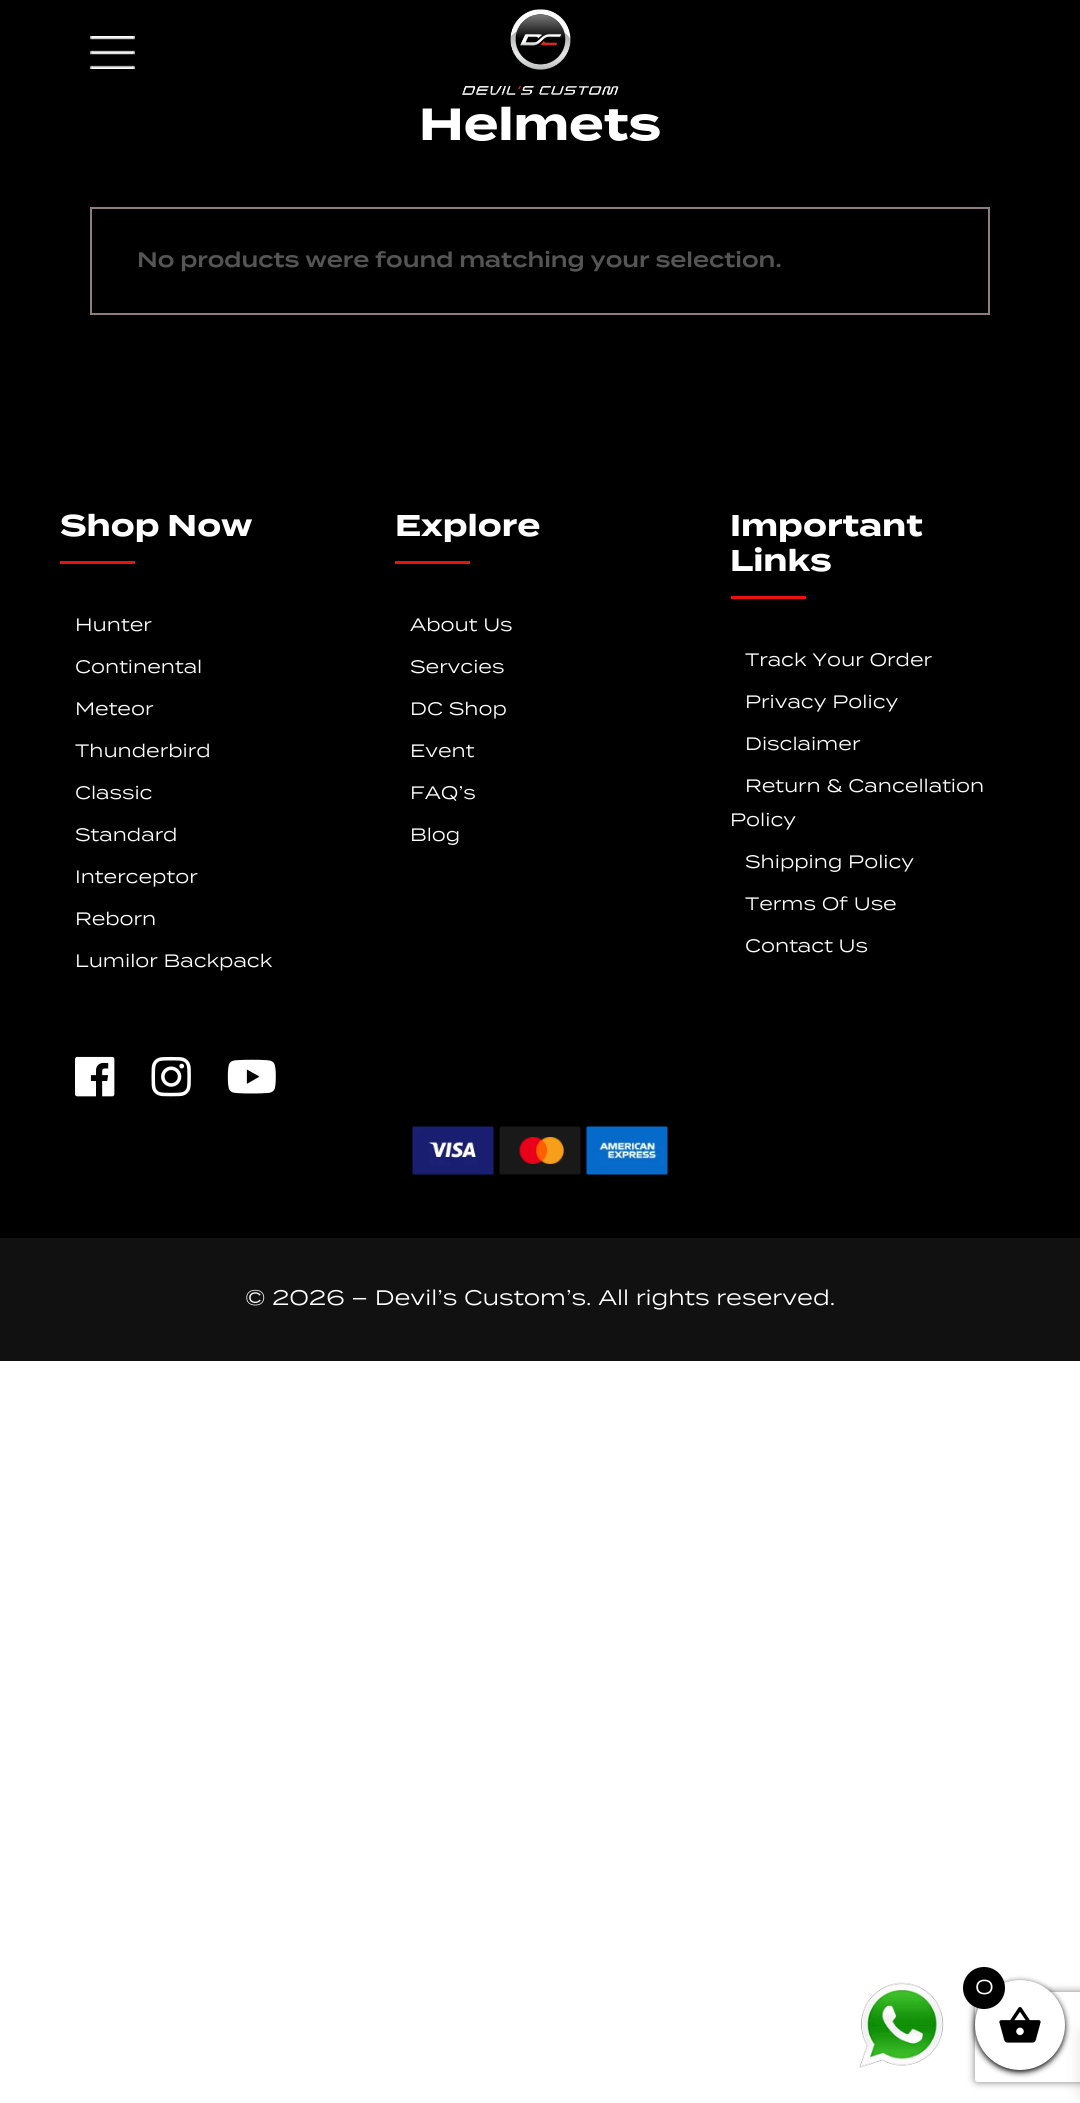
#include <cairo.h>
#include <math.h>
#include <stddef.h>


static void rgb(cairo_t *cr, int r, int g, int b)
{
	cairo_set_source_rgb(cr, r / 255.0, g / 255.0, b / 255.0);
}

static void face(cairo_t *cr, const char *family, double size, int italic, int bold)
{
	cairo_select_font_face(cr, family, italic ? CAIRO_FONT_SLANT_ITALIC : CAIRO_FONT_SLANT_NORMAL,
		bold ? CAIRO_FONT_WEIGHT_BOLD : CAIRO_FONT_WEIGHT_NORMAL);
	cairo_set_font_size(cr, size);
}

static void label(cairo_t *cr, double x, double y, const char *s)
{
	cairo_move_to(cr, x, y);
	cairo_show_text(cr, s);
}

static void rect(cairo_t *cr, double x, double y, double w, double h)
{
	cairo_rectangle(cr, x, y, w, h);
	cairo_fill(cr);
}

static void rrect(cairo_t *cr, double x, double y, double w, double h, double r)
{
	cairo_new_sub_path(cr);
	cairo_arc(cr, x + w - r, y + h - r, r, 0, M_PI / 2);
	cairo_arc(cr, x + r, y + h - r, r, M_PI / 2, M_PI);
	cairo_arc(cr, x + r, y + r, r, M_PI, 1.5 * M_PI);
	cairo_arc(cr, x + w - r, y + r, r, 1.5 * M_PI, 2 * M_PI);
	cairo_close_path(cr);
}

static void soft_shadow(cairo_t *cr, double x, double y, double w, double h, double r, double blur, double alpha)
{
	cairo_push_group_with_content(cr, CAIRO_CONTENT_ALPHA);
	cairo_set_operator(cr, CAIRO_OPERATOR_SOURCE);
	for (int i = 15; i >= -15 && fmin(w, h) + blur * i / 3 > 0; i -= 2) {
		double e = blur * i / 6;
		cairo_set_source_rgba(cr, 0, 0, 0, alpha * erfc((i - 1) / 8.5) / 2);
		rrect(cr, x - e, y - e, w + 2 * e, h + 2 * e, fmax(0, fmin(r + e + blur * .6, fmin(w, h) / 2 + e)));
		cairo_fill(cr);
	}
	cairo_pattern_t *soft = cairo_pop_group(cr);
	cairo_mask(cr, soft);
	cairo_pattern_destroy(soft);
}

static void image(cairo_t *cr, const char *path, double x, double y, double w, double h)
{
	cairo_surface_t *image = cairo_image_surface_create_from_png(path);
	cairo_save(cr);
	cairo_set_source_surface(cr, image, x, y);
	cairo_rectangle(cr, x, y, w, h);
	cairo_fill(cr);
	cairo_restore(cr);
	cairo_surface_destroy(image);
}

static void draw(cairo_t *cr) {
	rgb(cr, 255, 255, 255);
	cairo_paint(cr);
	rgb(cr, 0, 0, 0);
	rect(cr, 0, 0, 1080, 1238);
	image(cr, "image0.png", 90, 36, 45, 33);
	image(cr, "image1.png", 462, 9, 157, 86);
	face(cr, "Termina", 45, 0, 1);
	rgb(cr, 255, 255, 255);
	label(cr, 419, 140, "Helmets");
	cairo_rectangle(cr, 91, 208, 898, 106);
	rgb(cr, 141, 125, 125);
	cairo_stroke(cr);
	face(cr, "Termina SemiBold", 21, 0, 0);
	rgb(cr, 85, 85, 85);
	label(cr, 137, 267, "No products were found matching your selection.");
	image(cr, "image2.png", 859, 1982, 85, 86);
	face(cr, "Termina", 30, 0, 1);
	rgb(cr, 255, 255, 255);
	label(cr, 60, 536, "Shop Now");
	rgb(cr, 236, 17, 17);
	rect(cr, 60, 561, 75, 3);
	face(cr, "Termina", 18, 0, 0);
	rgb(cr, 255, 255, 255);
	label(cr, 75, 631, "Hunter");
	label(cr, 75, 673, "Continental");
	label(cr, 75, 715, "Meteor");
	label(cr, 75, 757, "Thunderbird");
	label(cr, 75, 799, "Classic");
	label(cr, 75, 841, "Standard");
	label(cr, 75, 883, "Interceptor");
	label(cr, 75, 925, "Reborn");
	label(cr, 75, 967, "Lumilor Backpack");
	face(cr, "Termina", 30, 0, 1);
	label(cr, 395, 536, "Explore");
	rgb(cr, 236, 17, 17);
	rect(cr, 395, 561, 75, 3);
	face(cr, "Termina", 18, 0, 0);
	rgb(cr, 255, 255, 255);
	label(cr, 410, 631, "About Us");
	label(cr, 410, 673, "Servcies");
	label(cr, 410, 715, "DC Shop");
	label(cr, 410, 757, "Event");
	label(cr, 410, 799, "FAQ’s");
	label(cr, 410, 841, "Blog");
	face(cr, "Termina", 30, 0, 1);
	label(cr, 730, 536, "Important");
	label(cr, 730, 571, "Links");
	rgb(cr, 236, 17, 17);
	rect(cr, 731, 596, 75, 3);
	face(cr, "Termina", 18, 0, 0);
	rgb(cr, 255, 255, 255);
	label(cr, 745, 666, "Track Your Order");
	label(cr, 745, 708, "Privacy Policy");
	label(cr, 745, 750, "Disclaimer");
	label(cr, 745, 792, "Return & Cancellation");
	label(cr, 730, 826, "Policy");
	label(cr, 745, 868, "Shipping Policy");
	label(cr, 745, 910, "Terms Of Use");
	label(cr, 745, 952, "Contact Us");
	image(cr, "image3.png", 75, 1056, 40, 41);
	image(cr, "image4.png", 151, 1056, 40, 41);
	image(cr, "image5.png", 227, 1059, 49, 35);
	image(cr, "image6.png", 412, 1126, 82, 49);
	image(cr, "image7.png", 499, 1126, 82, 49);
	image(cr, "image8.png", 586, 1126, 82, 49);
	rgb(cr, 17, 17, 17);
	rect(cr, 0, 1238, 1080, 123);
	face(cr, "Termina", 21, 0, 0);
	rgb(cr, 255, 255, 255);
	label(cr, 245, 1305, "© 2026 – Devil’s Custom’s. All rights reserved.");
	cairo_save(cr);
	cairo_set_fill_rule(cr, CAIRO_FILL_RULE_EVEN_ODD);
	cairo_new_path(cr);
	cairo_move_to(cr, 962, 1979);
	cairo_line_to(cr, 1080, 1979);
	cairo_line_to(cr, 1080, 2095);
	cairo_line_to(cr, 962, 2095);
	cairo_close_path(cr);
	cairo_move_to(cr, 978, 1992);
	cairo_line_to(cr, 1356, 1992);
	cairo_curve_to(cr, 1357.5, 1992, 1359, 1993.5, 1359, 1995);
	cairo_line_to(cr, 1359, 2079);
	cairo_curve_to(cr, 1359, 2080.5, 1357.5, 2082, 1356, 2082);
	cairo_line_to(cr, 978, 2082);
	cairo_curve_to(cr, 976.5, 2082, 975, 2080.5, 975, 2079);
	cairo_line_to(cr, 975, 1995);
	cairo_curve_to(cr, 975, 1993.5, 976.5, 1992, 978, 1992);
	cairo_close_path(cr);
	cairo_clip(cr);
	rgb(cr, 128, 128, 128);
	soft_shadow(cr, 975, 1992, 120, 90, 3, 4, 1);
	cairo_restore(cr);
	rgb(cr, 0, 0, 0);
	soft_shadow(cr, 975, 1982, 90, 90, 45, 3, 1);
	soft_shadow(cr, 1080, 2033, 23, 63, 0, 7.5, 0.1);
	rgb(cr, 255, 255, 255);
	cairo_arc(cr, 1020, 2025, 45, 0, 2 * M_PI);
	cairo_fill(cr);
	image(cr, "image9.png", 999, 2007, 42, 36);
	rgb(cr, 0, 0, 0);
	cairo_arc(cr, 984, 1988, 21, 0, 2 * M_PI);
	cairo_fill(cr);
	face(cr, "Termina", 20, 0, 0);
	rgb(cr, 255, 255, 255);
	label(cr, 975, 1994, "0");
}

int main(void) {
	cairo_surface_t *surface = cairo_image_surface_create(CAIRO_FORMAT_RGB24, 1080, 2103);
	cairo_t *cr = cairo_create(surface);
	cairo_font_options_t *options = cairo_font_options_create();
	cairo_font_options_set_hint_metrics(options, CAIRO_HINT_METRICS_OFF);
	cairo_font_options_set_hint_style(options, CAIRO_HINT_STYLE_NONE);
	cairo_set_font_options(cr, options);
	cairo_set_miter_limit(cr, 4);
	draw(cr);
	cairo_surface_write_to_png(surface, "render.png");
	cairo_font_options_destroy(options);
	cairo_destroy(cr);
	cairo_surface_destroy(surface);
	return 0;
}
